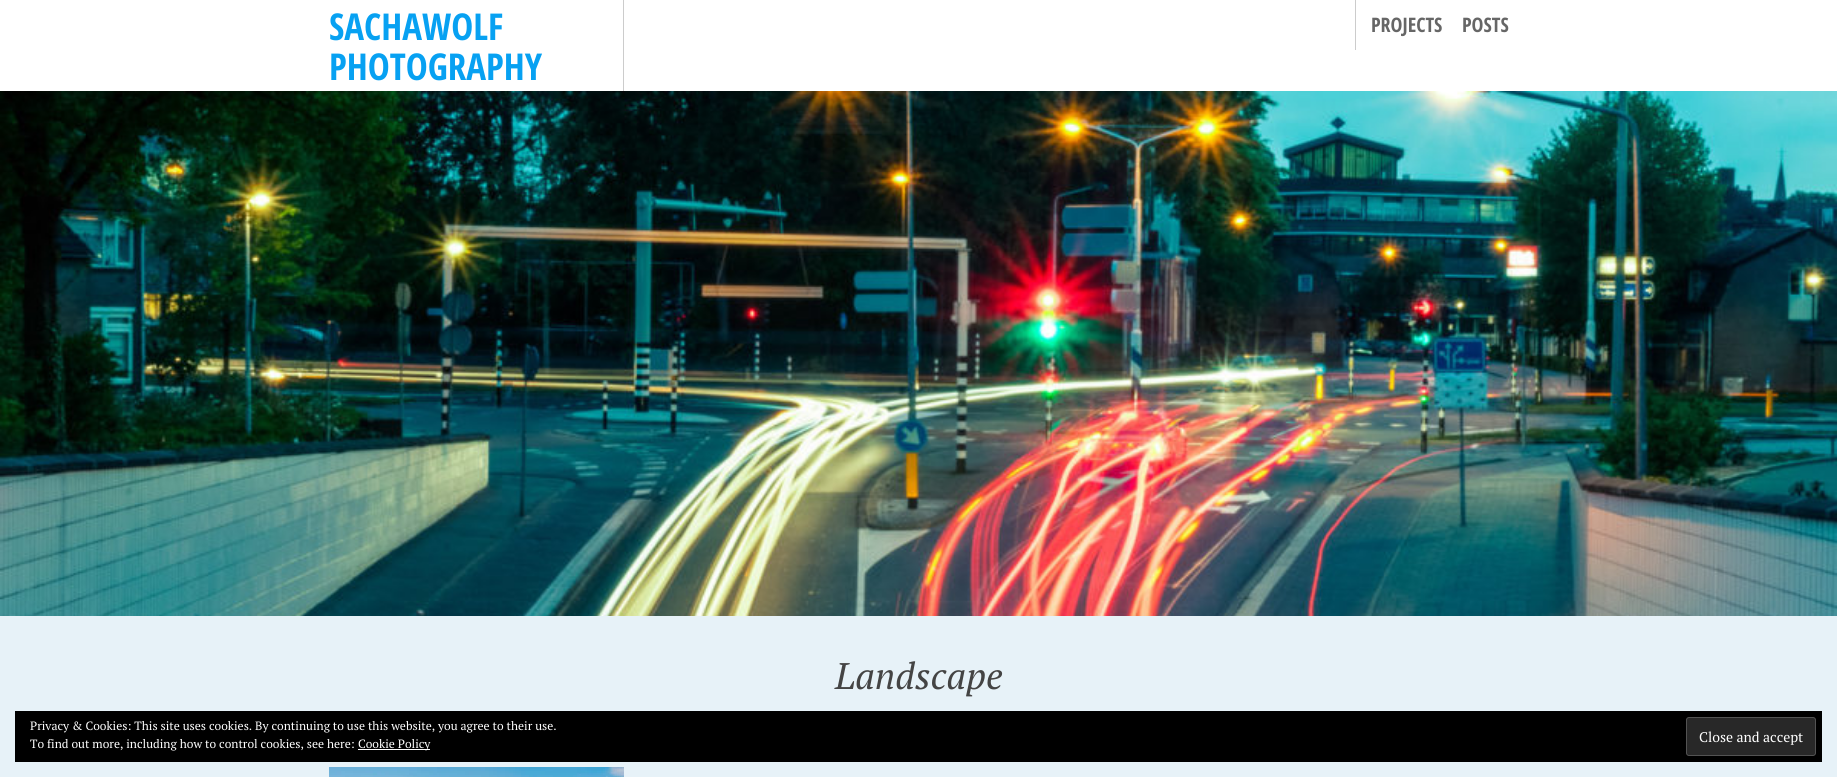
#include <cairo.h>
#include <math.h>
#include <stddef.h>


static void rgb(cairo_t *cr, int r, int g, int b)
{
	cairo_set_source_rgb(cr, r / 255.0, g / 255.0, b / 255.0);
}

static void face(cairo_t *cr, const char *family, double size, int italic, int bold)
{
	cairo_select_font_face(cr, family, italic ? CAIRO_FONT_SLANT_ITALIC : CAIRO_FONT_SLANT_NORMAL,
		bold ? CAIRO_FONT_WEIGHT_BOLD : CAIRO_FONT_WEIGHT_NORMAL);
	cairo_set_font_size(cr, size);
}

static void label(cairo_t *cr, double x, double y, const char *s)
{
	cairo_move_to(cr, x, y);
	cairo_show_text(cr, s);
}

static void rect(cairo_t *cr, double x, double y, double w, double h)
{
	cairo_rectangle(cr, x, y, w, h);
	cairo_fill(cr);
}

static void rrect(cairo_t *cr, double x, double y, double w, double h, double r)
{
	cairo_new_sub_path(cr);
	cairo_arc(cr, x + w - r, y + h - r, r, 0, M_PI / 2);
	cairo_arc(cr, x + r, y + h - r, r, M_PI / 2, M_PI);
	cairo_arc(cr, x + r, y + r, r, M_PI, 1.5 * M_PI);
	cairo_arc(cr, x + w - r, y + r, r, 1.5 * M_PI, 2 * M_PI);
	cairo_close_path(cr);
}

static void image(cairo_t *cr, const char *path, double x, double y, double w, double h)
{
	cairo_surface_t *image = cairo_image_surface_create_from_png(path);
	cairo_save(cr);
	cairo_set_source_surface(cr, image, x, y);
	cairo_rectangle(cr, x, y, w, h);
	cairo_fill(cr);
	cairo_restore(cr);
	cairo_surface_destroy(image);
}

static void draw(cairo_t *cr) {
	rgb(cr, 231, 242, 248);
	cairo_paint(cr);
	rgb(cr, 255, 255, 255);
	rect(cr, 0, 0, 1837, 91);
	rgb(cr, 204, 204, 204);
	rect(cr, 623, 0, 1, 91);
	face(cr, "Open Sans Condensed", 37, 0, 1);
	rgb(cr, 7, 161, 242);
	label(cr, 329, 40, "SACHAWOLF");
	label(cr, 329, 80, "PHOTOGRAPHY");
	rgb(cr, 204, 204, 204);
	rect(cr, 1355, 0, 1, 50);
	face(cr, "Open Sans Condensed", 20, 0, 1);
	rgb(cr, 102, 102, 102);
	label(cr, 1371, 32, "PROJECTS");
	label(cr, 1462, 32, "POSTS");
	image(cr, "image0.png", 0, 91, 1837, 525);
	face(cr, "PT Serif", 37, 1, 0);
	rgb(cr, 68, 68, 68);
	label(cr, 835, 689, "Landscape");
	image(cr, "image1.png", 329, 767, 295, 10);
	rgb(cr, 0, 0, 0);
	rect(cr, 15, 711, 1807, 51);
	face(cr, "PT Serif", 12, 0, 0);
	rgb(cr, 255, 255, 255);
	label(cr, 30, 730, "Privacy & Cookies: This site uses cookies. By continuing to use this website, you agree to their use.");
	label(cr, 30, 748, "To find out more, including how to control cookies, see here:");
	rect(cr, 358, 749, 72, 1);
	label(cr, 358, 748, "Cookie Policy");
	rgb(cr, 40, 40, 40);
	rrect(cr, 1686.5, 717.5, 129, 38, 2.5);
	cairo_fill_preserve(cr);
	rgb(cr, 83, 83, 83);
	cairo_set_line_width(cr, 1);
	cairo_stroke(cr);
	face(cr, "PT Serif", 14, 0, 0);
	rgb(cr, 255, 255, 255);
	label(cr, 1699, 742, "Close and accept");
}

int main(void) {
	cairo_surface_t *surface = cairo_image_surface_create(CAIRO_FORMAT_RGB24, 1837, 777);
	cairo_t *cr = cairo_create(surface);
	cairo_font_options_t *options = cairo_font_options_create();
	cairo_font_options_set_hint_metrics(options, CAIRO_HINT_METRICS_OFF);
	cairo_font_options_set_hint_style(options, CAIRO_HINT_STYLE_NONE);
	cairo_set_font_options(cr, options);
	cairo_set_miter_limit(cr, 4);
	draw(cr);
	cairo_surface_write_to_png(surface, "render.png");
	cairo_font_options_destroy(options);
	cairo_destroy(cr);
	cairo_surface_destroy(surface);
	return 0;
}
